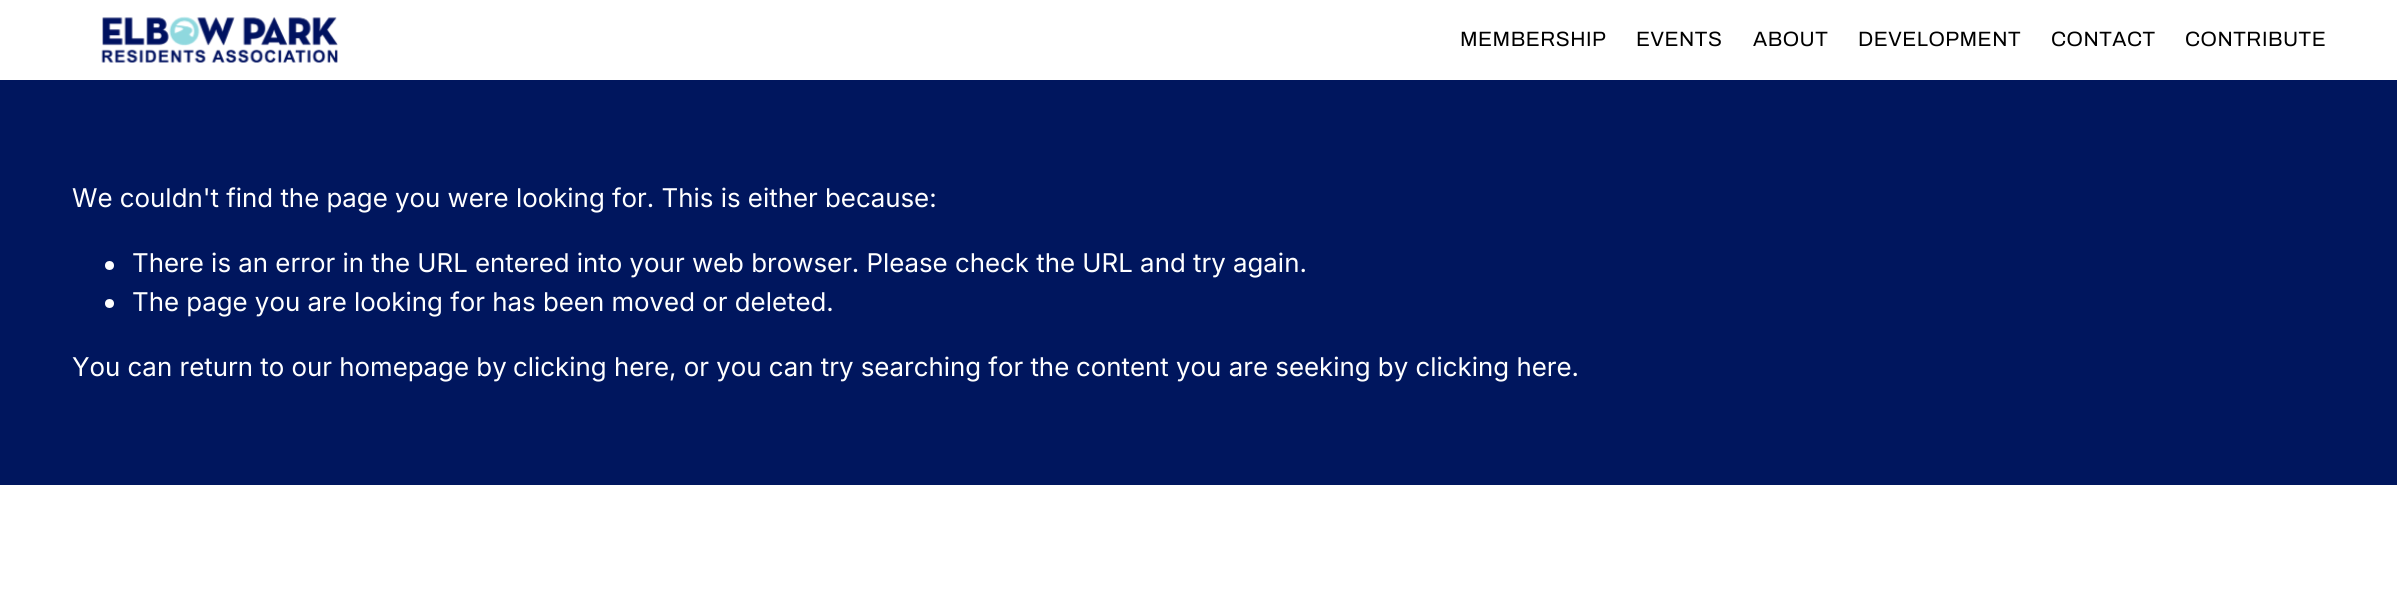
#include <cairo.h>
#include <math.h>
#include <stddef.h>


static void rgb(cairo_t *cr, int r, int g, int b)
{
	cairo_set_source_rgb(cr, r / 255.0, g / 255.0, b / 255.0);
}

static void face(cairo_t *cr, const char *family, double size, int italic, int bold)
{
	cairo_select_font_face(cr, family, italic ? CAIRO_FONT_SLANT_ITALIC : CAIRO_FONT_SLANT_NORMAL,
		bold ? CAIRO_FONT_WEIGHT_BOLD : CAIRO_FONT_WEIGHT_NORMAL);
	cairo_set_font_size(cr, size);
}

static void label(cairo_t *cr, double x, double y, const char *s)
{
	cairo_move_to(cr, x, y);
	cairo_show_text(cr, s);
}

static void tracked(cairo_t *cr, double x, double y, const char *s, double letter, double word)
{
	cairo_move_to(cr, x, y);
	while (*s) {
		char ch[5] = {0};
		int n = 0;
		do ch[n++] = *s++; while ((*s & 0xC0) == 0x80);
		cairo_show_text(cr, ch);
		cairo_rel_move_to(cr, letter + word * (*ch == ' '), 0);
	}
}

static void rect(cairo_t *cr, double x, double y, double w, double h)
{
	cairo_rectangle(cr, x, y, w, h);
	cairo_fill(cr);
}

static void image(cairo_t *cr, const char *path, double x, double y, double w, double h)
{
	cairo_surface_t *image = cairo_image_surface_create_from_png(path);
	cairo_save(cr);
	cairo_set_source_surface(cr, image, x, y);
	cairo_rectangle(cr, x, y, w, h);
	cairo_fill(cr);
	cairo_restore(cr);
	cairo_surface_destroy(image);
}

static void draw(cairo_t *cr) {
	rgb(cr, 0, 22, 94);
	cairo_paint(cr);
	rgb(cr, 255, 255, 255);
	rect(cr, 0, 0, 2397, 80);
	image(cr, "image0.png", 101, 16, 237, 47);
	face(cr, "Archivo SemiBold", 20.75, 0, 0);
	rgb(cr, 0, 0, 0);
	tracked(cr, 1460, 46, "MEMBERSHIP", 0.5, 0);
	tracked(cr, 1636, 46, "EVENTS", 0.5, 0);
	tracked(cr, 1753, 46, "ABOUT", 0.5, 0);
	tracked(cr, 1858, 46, "DEVELOPMENT", 0.5, 0);
	tracked(cr, 2051, 46, "CONTACT", 0.5, 0);
	tracked(cr, 2185, 46, "CONTRIBUTE", 0.5, 0);
	face(cr, "Inter", 25.85, 0, 0);
	rgb(cr, 255, 255, 255);
	label(cr, 72, 207, "We couldn't find the page you were looking for. This is either because:");
	cairo_new_path(cr);
	cairo_arc(cr, 109.5, 265.5, 4.5, 0, 2 * M_PI);
	cairo_fill(cr);
	label(cr, 132, 272, "There is an error in the URL entered into your web browser. Please check the URL and try again.");
	cairo_new_path(cr);
	cairo_arc(cr, 109.5, 303.5, 4.5, 0, 2 * M_PI);
	cairo_fill(cr);
	label(cr, 132, 311, "The page you are looking for has been moved or deleted.");
	label(cr, 72, 376, "You can return to our homepage by");
	label(cr, 513, 376, "clicking here, or you can try searching for the");
	label(cr, 1076, 376, "content you are seeking by clicking here.");
	rect(cr, 0, 485, 2397, 116);
}

int main(void) {
	cairo_surface_t *surface = cairo_image_surface_create(CAIRO_FORMAT_RGB24, 2397, 601);
	cairo_t *cr = cairo_create(surface);
	cairo_font_options_t *options = cairo_font_options_create();
	cairo_font_options_set_hint_metrics(options, CAIRO_HINT_METRICS_OFF);
	cairo_font_options_set_hint_style(options, CAIRO_HINT_STYLE_NONE);
	cairo_set_font_options(cr, options);
	cairo_set_miter_limit(cr, 4);
	draw(cr);
	cairo_surface_write_to_png(surface, "render.png");
	cairo_font_options_destroy(options);
	cairo_destroy(cr);
	cairo_surface_destroy(surface);
	return 0;
}
